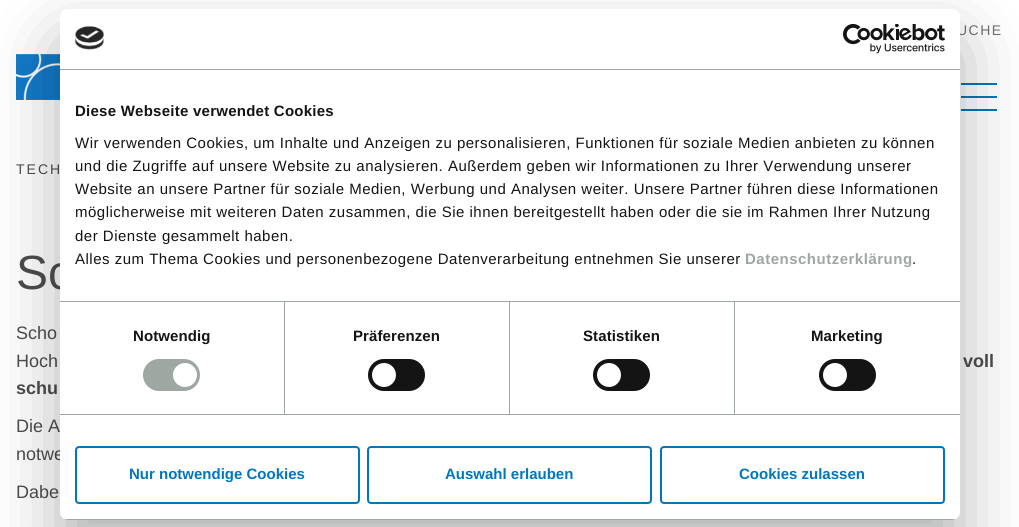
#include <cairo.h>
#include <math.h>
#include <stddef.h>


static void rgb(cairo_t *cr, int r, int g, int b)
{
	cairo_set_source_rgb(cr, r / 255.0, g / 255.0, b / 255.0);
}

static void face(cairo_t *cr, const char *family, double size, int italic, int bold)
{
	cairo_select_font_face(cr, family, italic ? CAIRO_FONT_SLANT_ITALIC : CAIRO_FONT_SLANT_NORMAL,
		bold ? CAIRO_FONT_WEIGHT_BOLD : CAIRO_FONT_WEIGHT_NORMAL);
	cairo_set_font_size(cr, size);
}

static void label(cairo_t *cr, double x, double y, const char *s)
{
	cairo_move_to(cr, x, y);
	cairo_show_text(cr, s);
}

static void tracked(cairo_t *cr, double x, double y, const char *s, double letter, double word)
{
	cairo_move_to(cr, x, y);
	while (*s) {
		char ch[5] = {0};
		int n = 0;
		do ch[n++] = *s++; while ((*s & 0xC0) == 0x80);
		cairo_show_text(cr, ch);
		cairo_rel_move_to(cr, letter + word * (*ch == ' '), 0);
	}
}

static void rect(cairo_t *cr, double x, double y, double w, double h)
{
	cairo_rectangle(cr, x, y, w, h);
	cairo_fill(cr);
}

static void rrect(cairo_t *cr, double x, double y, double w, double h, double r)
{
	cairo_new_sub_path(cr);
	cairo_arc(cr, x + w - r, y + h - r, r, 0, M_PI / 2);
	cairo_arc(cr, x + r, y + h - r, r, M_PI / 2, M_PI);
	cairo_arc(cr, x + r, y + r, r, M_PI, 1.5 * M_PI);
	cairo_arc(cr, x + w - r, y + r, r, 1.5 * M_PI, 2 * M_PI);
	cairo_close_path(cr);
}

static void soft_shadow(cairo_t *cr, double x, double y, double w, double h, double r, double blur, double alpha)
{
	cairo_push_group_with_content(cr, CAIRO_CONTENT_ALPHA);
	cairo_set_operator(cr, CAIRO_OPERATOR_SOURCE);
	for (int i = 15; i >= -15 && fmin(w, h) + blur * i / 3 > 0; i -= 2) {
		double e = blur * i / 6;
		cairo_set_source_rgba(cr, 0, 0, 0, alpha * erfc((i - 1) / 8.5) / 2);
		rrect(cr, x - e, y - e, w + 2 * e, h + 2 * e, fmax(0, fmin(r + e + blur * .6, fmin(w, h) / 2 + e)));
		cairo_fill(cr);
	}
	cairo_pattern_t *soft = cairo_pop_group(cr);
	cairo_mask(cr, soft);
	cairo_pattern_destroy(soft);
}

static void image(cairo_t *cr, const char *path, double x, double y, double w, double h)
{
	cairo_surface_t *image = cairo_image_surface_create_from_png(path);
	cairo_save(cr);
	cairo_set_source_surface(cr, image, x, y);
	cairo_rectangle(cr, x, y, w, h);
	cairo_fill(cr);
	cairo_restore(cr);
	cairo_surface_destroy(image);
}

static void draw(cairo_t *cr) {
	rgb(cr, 255, 255, 255);
	cairo_paint(cr);
	face(cr, "Liberation Sans", 14, 0, 0);
	rgb(cr, 112, 113, 115);
	tracked(cr, 957, 35, "UCHE", 1.5, 0);
	image(cr, "image0.png", 16, 54, 44, 46);
	rgb(cr, 0, 118, 189);
	rect(cr, 961, 96, 36, 2);
	rect(cr, 961, 83, 36, 2);
	rect(cr, 961, 109, 36, 2);
	rgb(cr, 77, 77, 77);
	tracked(cr, 16, 174, "TECH", 2, 0);
	face(cr, "Liberation Sans", 48, 0, 0);
	label(cr, 16, 289, "Sc");
	face(cr, "Liberation Sans", 18, 0, 0);
	label(cr, 16, 339, "Scho");
	label(cr, 16, 367, "Hoch");
	face(cr, "Liberation Sans", 18, 0, 1);
	label(cr, 963, 367, "voll");
	label(cr, 16, 394, "schu");
	face(cr, "Liberation Sans", 18, 0, 0);
	label(cr, 16, 432, "Die A");
	label(cr, 16, 460, "notwe");
	label(cr, 16, 498, "Dabe");
	rgb(cr, 0, 0, 0);
	soft_shadow(cr, 60, 41, 900, 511, 8, 34, 0.3);
	rgb(cr, 255, 255, 255);
	rrect(cr, 60, 9, 900, 511, 8);
	cairo_fill(cr);
	rgb(cr, 159, 167, 163);
	rect(cr, 60, 69, 900, 1);
	image(cr, "image1.png", 74, 26, 30, 24);
	image(cr, "image2.png", 843, 24, 102, 30);
	rect(cr, 60, 301, 900, 1);
	face(cr, "Liberation Sans", 15, 0, 1);
	rgb(cr, 20, 20, 20);
	tracked(cr, 75, 116, "Diese Webseite verwendet Cookies", 0.25, 0);
	face(cr, "Liberation Sans", 15, 0, 0);
	tracked(cr, 75, 148, "Wir verwenden Cookies, um Inhalte und Anzeigen zu personalisieren, Funktionen für soziale Medien anbieten zu können", 0.5, 0);
	tracked(cr, 75, 171, "und die Zugriffe auf unsere Website zu analysieren. Außerdem geben wir Informationen zu Ihrer Verwendung unserer", 0.5, 0);
	tracked(cr, 75, 194, "Website an unsere Partner für soziale Medien, Werbung und Analysen weiter. Unsere Partner führen diese Informationen", 0.5, 0);
	tracked(cr, 75, 217, "möglicherweise mit weiteren Daten zusammen, die Sie ihnen bereitgestellt haben oder die sie im Rahmen Ihrer Nutzung", 0.5, 0);
	tracked(cr, 75, 241, "der Dienste gesammelt haben.", 0.5, 0);
	tracked(cr, 75, 264, "Alles zum Thema Cookies und personenbezogene Datenverarbeitung entnehmen Sie unserer", 0.5, 0);
	face(cr, "Liberation Sans", 15, 0, 1);
	rgb(cr, 159, 167, 163);
	tracked(cr, 745, 264, "Datenschutzerklärung", 0.5, 0);
	face(cr, "Liberation Sans", 15, 0, 0);
	rgb(cr, 20, 20, 20);
	tracked(cr, 912, 264, ".", 0.5, 0);
	rgb(cr, 159, 167, 163);
	rect(cr, 60, 414, 900, 1);
	rect(cr, 284, 302, 1, 112);
	face(cr, "Liberation Sans", 15, 0, 1);
	rgb(cr, 20, 20, 20);
	tracked(cr, 133, 341, "Notwendig", 0.1, 0);
	rgb(cr, 159, 167, 163);
	rrect(cr, 143, 359, 57, 32, 16);
	cairo_fill(cr);
	rgb(cr, 255, 255, 255);
	cairo_arc(cr, 185, 375, 12, 0, 2 * M_PI);
	cairo_fill(cr);
	rgb(cr, 159, 167, 163);
	rect(cr, 509, 302, 1, 112);
	rgb(cr, 20, 20, 20);
	tracked(cr, 353, 341, "Präferenzen", 0.1, 0);
	rrect(cr, 368, 359, 57, 32, 16);
	cairo_fill(cr);
	rgb(cr, 255, 255, 255);
	cairo_arc(cr, 384, 375, 12, 0, 2 * M_PI);
	cairo_fill(cr);
	rgb(cr, 159, 167, 163);
	rect(cr, 734, 302, 1, 112);
	rgb(cr, 20, 20, 20);
	tracked(cr, 583, 341, "Statistiken", 0.1, 0);
	rrect(cr, 593, 359, 57, 32, 16);
	cairo_fill(cr);
	rgb(cr, 255, 255, 255);
	cairo_arc(cr, 609, 375, 12, 0, 2 * M_PI);
	cairo_fill(cr);
	rgb(cr, 20, 20, 20);
	tracked(cr, 811, 341, "Marketing", 0.1, 0);
	rrect(cr, 819, 359, 57, 32, 16);
	cairo_fill(cr);
	rgb(cr, 255, 255, 255);
	cairo_arc(cr, 835, 375, 12, 0, 2 * M_PI);
	cairo_fill(cr);
	cairo_save(cr);
	rrect(cr, 60, 9, 900, 511, 8);
	cairo_clip(cr);
	rgb(cr, 159, 167, 163);
	rect(cr, 60, 519, 900, 1);
	cairo_restore(cr);
	rrect(cr, 76, 447, 283, 56, 3);
	rgb(cr, 0, 118, 189);
	cairo_stroke(cr);
	label(cr, 129, 479, "Nur notwendige Cookies");
	rrect(cr, 368, 447, 283, 56, 3);
	cairo_stroke(cr);
	label(cr, 445, 479, "Auswahl erlauben");
	rrect(cr, 661, 447, 283, 56, 3);
	cairo_stroke(cr);
	label(cr, 739, 479, "Cookies zulassen");
}

int main(void) {
	cairo_surface_t *surface = cairo_image_surface_create(CAIRO_FORMAT_RGB24, 1019, 527);
	cairo_t *cr = cairo_create(surface);
	cairo_font_options_t *options = cairo_font_options_create();
	cairo_font_options_set_hint_metrics(options, CAIRO_HINT_METRICS_OFF);
	cairo_font_options_set_hint_style(options, CAIRO_HINT_STYLE_NONE);
	cairo_set_font_options(cr, options);
	cairo_set_miter_limit(cr, 4);
	draw(cr);
	cairo_surface_write_to_png(surface, "render.png");
	cairo_font_options_destroy(options);
	cairo_destroy(cr);
	cairo_surface_destroy(surface);
	return 0;
}
